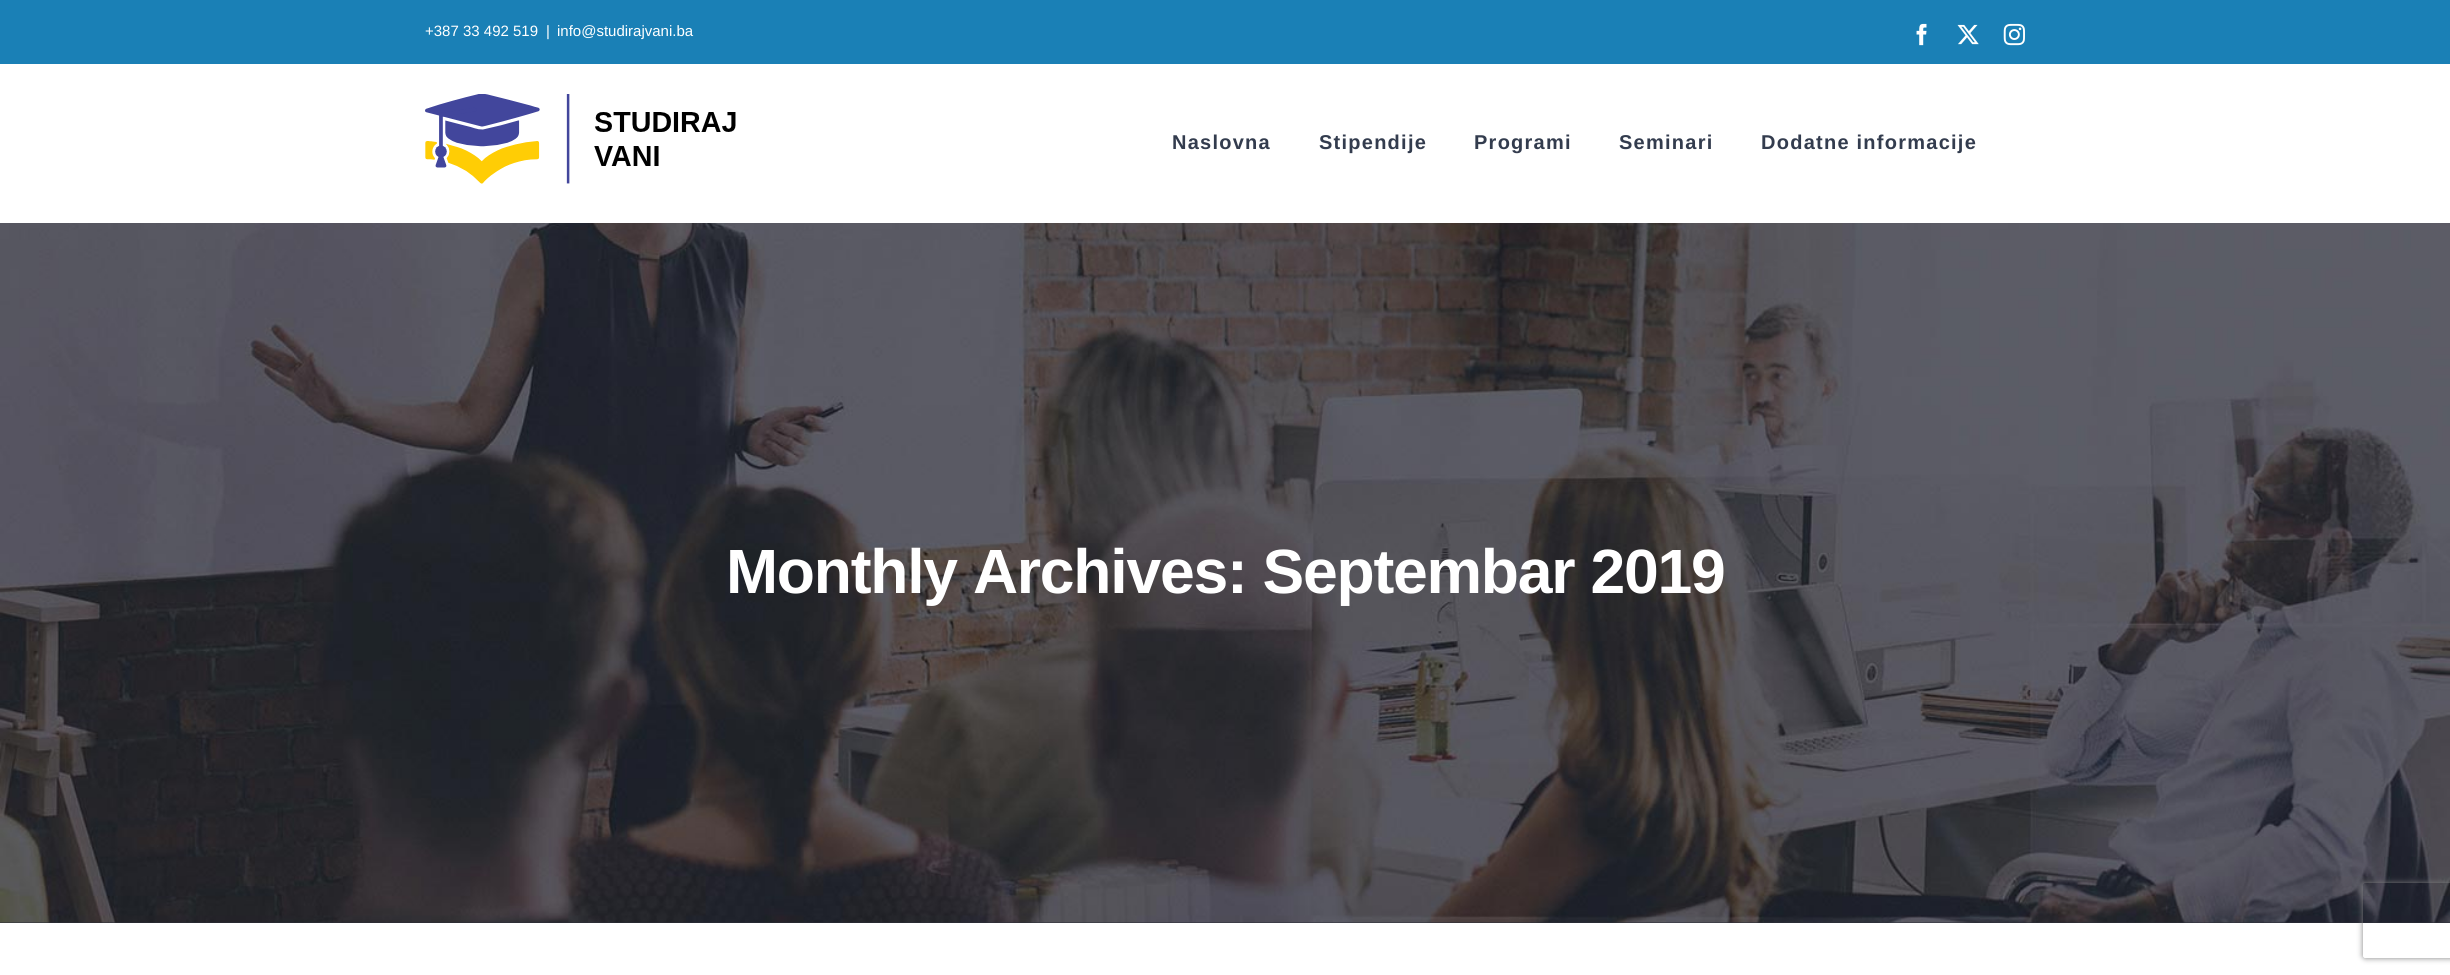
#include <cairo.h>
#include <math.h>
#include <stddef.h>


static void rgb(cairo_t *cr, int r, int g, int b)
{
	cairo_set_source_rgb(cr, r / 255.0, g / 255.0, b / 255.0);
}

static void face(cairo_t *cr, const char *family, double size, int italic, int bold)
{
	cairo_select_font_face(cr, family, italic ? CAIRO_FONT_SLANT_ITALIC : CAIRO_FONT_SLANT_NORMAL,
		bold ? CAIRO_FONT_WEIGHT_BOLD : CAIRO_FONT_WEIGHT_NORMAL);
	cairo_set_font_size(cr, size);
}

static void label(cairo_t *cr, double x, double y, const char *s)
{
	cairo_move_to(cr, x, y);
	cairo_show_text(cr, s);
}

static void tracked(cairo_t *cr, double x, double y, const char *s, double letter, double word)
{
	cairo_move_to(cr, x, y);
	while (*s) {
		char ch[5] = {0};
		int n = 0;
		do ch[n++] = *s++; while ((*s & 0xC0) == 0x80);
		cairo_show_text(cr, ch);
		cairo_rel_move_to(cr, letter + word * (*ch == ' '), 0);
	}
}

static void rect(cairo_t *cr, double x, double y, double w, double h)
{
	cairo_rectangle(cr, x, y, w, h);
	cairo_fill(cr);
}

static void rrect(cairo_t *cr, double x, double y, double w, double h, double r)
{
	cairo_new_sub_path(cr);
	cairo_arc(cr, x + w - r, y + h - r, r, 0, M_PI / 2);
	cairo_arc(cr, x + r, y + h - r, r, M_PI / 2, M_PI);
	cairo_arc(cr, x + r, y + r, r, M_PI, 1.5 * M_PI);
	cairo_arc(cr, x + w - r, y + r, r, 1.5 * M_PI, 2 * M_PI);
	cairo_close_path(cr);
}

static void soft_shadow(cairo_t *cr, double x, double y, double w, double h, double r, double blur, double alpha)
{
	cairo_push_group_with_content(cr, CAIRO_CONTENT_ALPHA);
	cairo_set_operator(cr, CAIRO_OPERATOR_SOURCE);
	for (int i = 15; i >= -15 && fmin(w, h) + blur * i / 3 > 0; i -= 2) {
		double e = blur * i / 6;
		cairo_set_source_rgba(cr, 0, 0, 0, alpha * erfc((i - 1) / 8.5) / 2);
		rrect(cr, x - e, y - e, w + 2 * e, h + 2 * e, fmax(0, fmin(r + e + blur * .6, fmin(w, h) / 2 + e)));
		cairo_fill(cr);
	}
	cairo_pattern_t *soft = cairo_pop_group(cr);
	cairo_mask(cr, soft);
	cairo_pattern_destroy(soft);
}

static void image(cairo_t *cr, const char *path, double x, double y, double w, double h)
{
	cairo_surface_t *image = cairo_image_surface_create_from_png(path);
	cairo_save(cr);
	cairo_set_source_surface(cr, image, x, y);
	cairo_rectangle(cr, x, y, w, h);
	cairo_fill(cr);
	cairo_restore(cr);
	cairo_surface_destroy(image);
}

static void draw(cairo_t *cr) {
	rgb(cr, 255, 255, 255);
	cairo_paint(cr);
	rgb(cr, 26, 128, 182);
	rect(cr, 0, 0, 2450, 64);
	face(cr, "Liberation Sans", 15, 0, 0);
	rgb(cr, 255, 255, 255);
	label(cr, 425, 36, "+387 33 492 519");
	label(cr, 546, 36, "|");
	label(cr, 557, 36, "info@studirajvani.ba");
	image(cr, "image0.png", 1916, 23, 11, 23);
	image(cr, "image1.png", 1957, 24, 22, 21);
	image(cr, "image2.png", 2003, 23, 22, 23);
	image(cr, "image3.png", 425, 94, 311, 90);
	face(cr, "Liberation Sans", 20, 0, 1);
	rgb(cr, 51, 60, 78);
	tracked(cr, 1172, 149, "Naslovna", 1.25, 0);
	tracked(cr, 1319, 149, "Stipendije", 1.25, 0);
	tracked(cr, 1474, 149, "Programi", 1.25, 0);
	tracked(cr, 1619, 149, "Seminari", 1.25, 0);
	tracked(cr, 1761, 149, "Dodatne informacije", 1.25, 0);
	rgb(cr, 44, 47, 57);
	rect(cr, 0, 922, 2450, 1);
	image(cr, "image4.png", 0, 223, 2450, 700);
	face(cr, "Liberation Sans", 62.5, 0, 1);
	rgb(cr, 255, 255, 255);
	tracked(cr, 726, 593, "Monthly Archives: Septembar 2019", -1.25, 0);
	cairo_save(cr);
	cairo_set_fill_rule(cr, CAIRO_FILL_RULE_EVEN_ODD);
	cairo_new_path(cr);
	cairo_move_to(cr, 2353, 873);
	cairo_line_to(cr, 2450, 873);
	cairo_line_to(cr, 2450, 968);
	cairo_line_to(cr, 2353, 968);
	cairo_close_path(cr);
	cairo_move_to(cr, 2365.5, 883);
	cairo_line_to(cr, 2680.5, 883);
	cairo_curve_to(cr, 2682, 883, 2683, 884, 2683, 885.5);
	cairo_line_to(cr, 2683, 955.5);
	cairo_curve_to(cr, 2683, 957, 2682, 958, 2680.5, 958);
	cairo_line_to(cr, 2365.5, 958);
	cairo_curve_to(cr, 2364, 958, 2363, 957, 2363, 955.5);
	cairo_line_to(cr, 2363, 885.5);
	cairo_curve_to(cr, 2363, 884, 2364, 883, 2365.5, 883);
	cairo_close_path(cr);
	cairo_clip(cr);
	rgb(cr, 128, 128, 128);
	soft_shadow(cr, 2363, 883, 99, 75, 2.5, 3, 1);
	cairo_restore(cr);
}

int main(void) {
	cairo_surface_t *surface = cairo_image_surface_create(CAIRO_FORMAT_RGB24, 2450, 975);
	cairo_t *cr = cairo_create(surface);
	cairo_font_options_t *options = cairo_font_options_create();
	cairo_font_options_set_hint_metrics(options, CAIRO_HINT_METRICS_OFF);
	cairo_font_options_set_hint_style(options, CAIRO_HINT_STYLE_NONE);
	cairo_set_font_options(cr, options);
	cairo_set_miter_limit(cr, 4);
	draw(cr);
	cairo_surface_write_to_png(surface, "render.png");
	cairo_font_options_destroy(options);
	cairo_destroy(cr);
	cairo_surface_destroy(surface);
	return 0;
}
